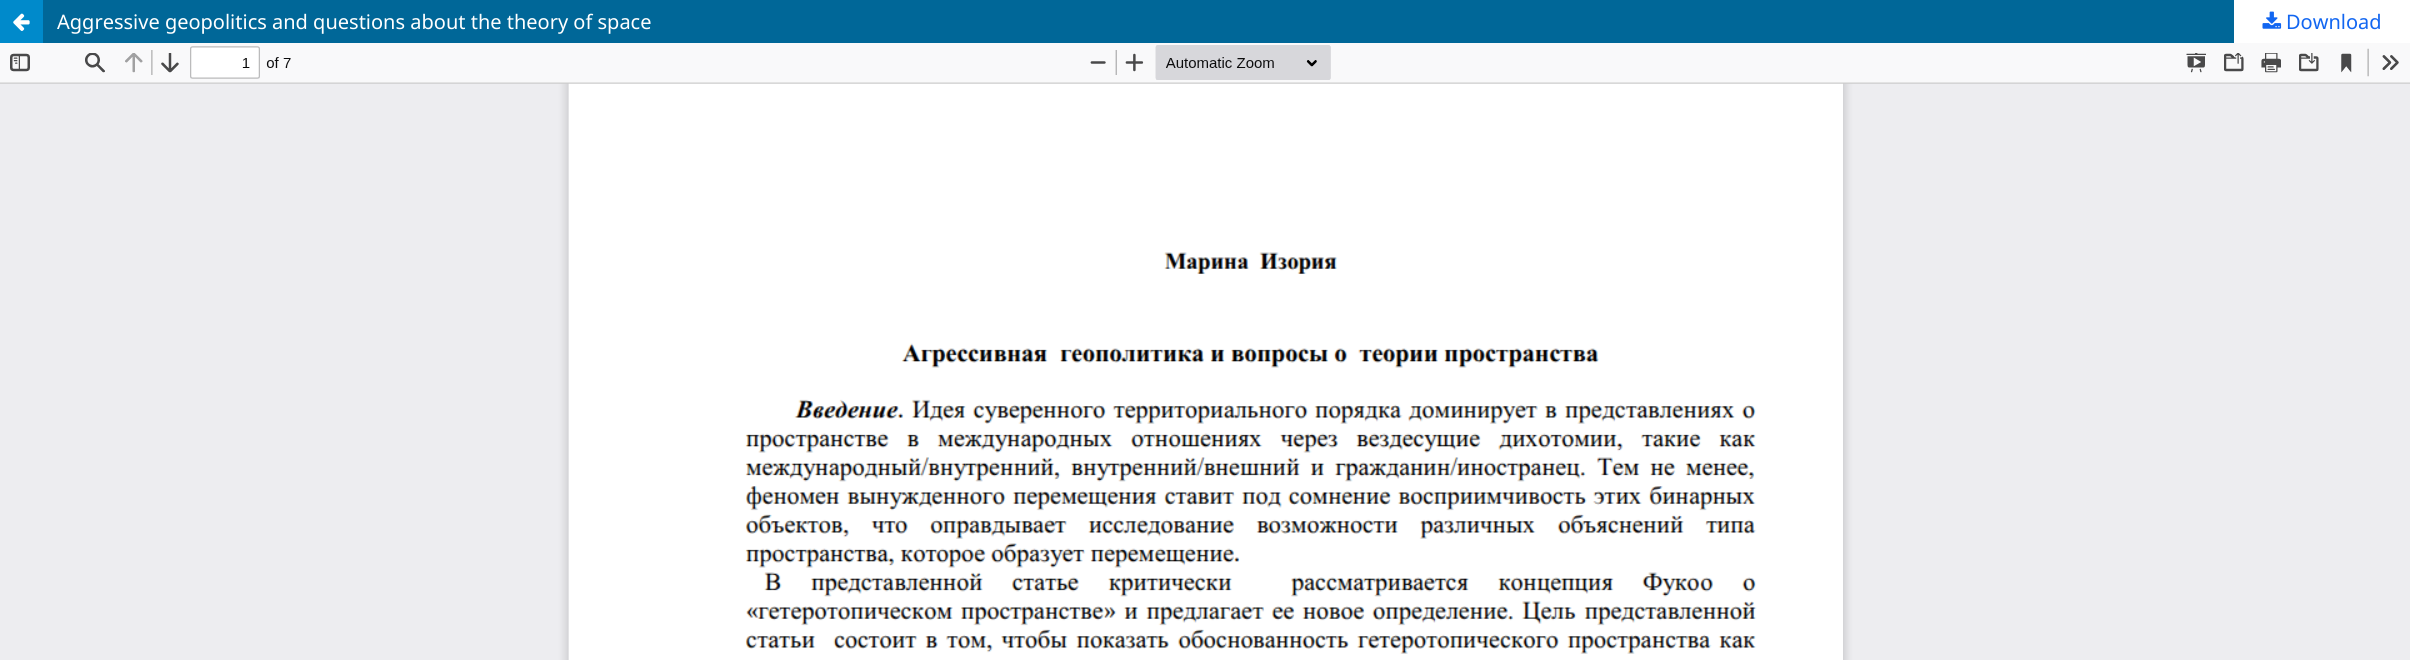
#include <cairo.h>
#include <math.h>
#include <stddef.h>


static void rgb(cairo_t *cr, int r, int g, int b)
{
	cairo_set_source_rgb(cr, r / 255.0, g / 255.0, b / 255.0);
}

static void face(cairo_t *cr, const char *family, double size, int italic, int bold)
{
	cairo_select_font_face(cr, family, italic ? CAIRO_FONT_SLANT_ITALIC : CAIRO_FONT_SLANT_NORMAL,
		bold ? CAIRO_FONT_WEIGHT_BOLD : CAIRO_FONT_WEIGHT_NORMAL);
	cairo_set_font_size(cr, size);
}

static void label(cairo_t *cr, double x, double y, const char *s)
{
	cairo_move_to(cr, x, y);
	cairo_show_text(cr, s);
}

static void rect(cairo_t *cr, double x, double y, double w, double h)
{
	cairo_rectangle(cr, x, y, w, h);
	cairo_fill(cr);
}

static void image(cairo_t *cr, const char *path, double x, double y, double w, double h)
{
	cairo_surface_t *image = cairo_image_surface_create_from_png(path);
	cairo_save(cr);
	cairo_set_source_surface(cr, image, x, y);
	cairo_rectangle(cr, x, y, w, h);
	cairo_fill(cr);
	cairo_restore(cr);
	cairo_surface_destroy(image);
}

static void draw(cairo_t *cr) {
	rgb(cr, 255, 255, 255);
	cairo_paint(cr);
	rgb(cr, 0, 103, 152);
	rect(cr, 43, 0, 2191, 43);
	rgb(cr, 0, 138, 203);
	rect(cr, 0, 0, 43, 43);
	image(cr, "image0.png", 13, 13, 17, 18);
	face(cr, "Noto Sans", 20, 0, 0);
	rgb(cr, 255, 255, 255);
	label(cr, 57, 29, "Aggressive geopolitics and questions about the theory of space");
	image(cr, "image1.png", 2262, 11, 20, 18);
	rgb(cr, 18, 102, 241);
	label(cr, 2286, 29, "Download");
	image(cr, "image2.png", 0, 43, 2410, 617);
}

int main(void) {
	cairo_surface_t *surface = cairo_image_surface_create(CAIRO_FORMAT_RGB24, 2410, 660);
	cairo_t *cr = cairo_create(surface);
	cairo_font_options_t *options = cairo_font_options_create();
	cairo_font_options_set_hint_metrics(options, CAIRO_HINT_METRICS_OFF);
	cairo_font_options_set_hint_style(options, CAIRO_HINT_STYLE_NONE);
	cairo_set_font_options(cr, options);
	cairo_set_miter_limit(cr, 4);
	draw(cr);
	cairo_surface_write_to_png(surface, "render.png");
	cairo_font_options_destroy(options);
	cairo_destroy(cr);
	cairo_surface_destroy(surface);
	return 0;
}
